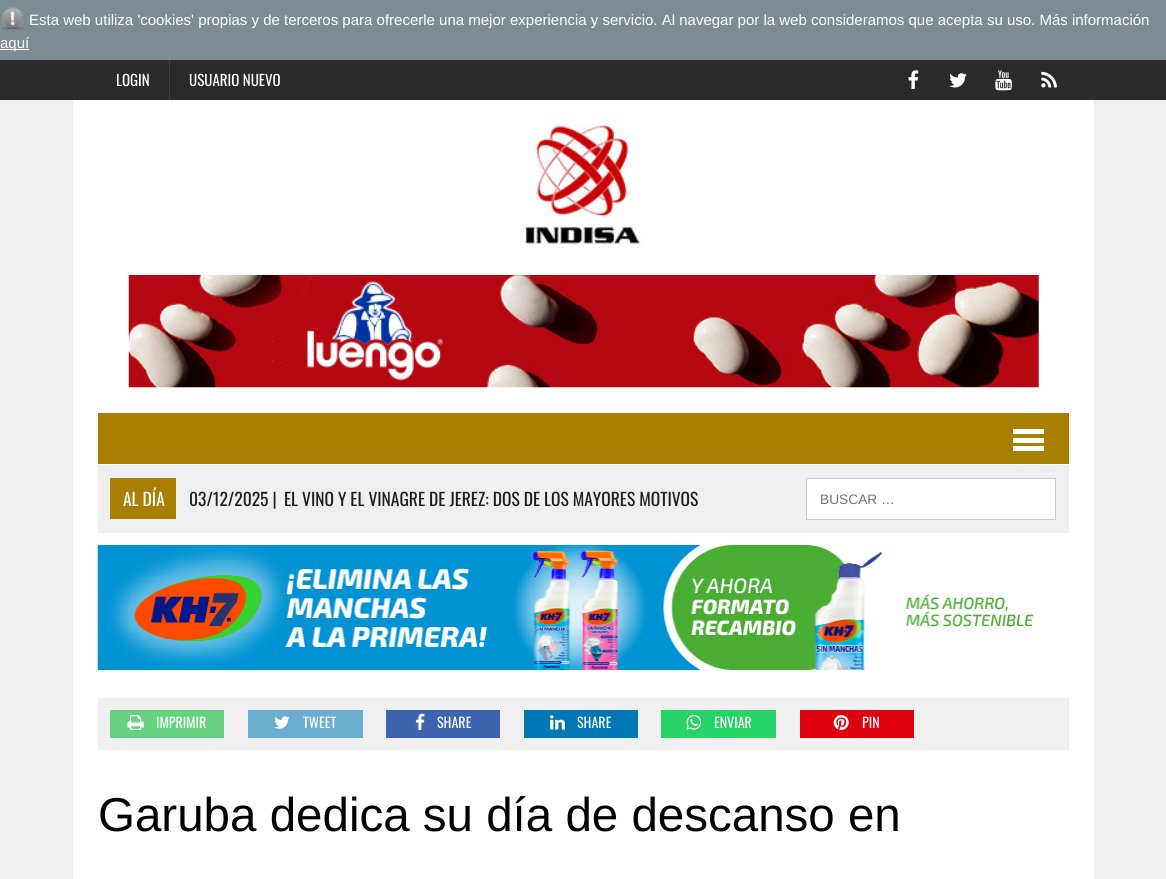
#include <cairo.h>
#include <math.h>
#include <stddef.h>


static void rgb(cairo_t *cr, int r, int g, int b)
{
	cairo_set_source_rgb(cr, r / 255.0, g / 255.0, b / 255.0);
}

static void face(cairo_t *cr, const char *family, double size, int italic, int bold)
{
	cairo_select_font_face(cr, family, italic ? CAIRO_FONT_SLANT_ITALIC : CAIRO_FONT_SLANT_NORMAL,
		bold ? CAIRO_FONT_WEIGHT_BOLD : CAIRO_FONT_WEIGHT_NORMAL);
	cairo_set_font_size(cr, size);
}

static void label(cairo_t *cr, double x, double y, const char *s)
{
	cairo_move_to(cr, x, y);
	cairo_show_text(cr, s);
}

static void rect(cairo_t *cr, double x, double y, double w, double h)
{
	cairo_rectangle(cr, x, y, w, h);
	cairo_fill(cr);
}

static void image(cairo_t *cr, const char *path, double x, double y, double w, double h)
{
	cairo_surface_t *image = cairo_image_surface_create_from_png(path);
	cairo_save(cr);
	cairo_set_source_surface(cr, image, x, y);
	cairo_rectangle(cr, x, y, w, h);
	cairo_fill(cr);
	cairo_restore(cr);
	cairo_surface_destroy(image);
}

static void draw(cairo_t *cr) {
	rgb(cr, 239, 239, 239);
	cairo_paint(cr);
	rgb(cr, 125, 140, 147);
	rect(cr, 0, 0, 1166, 60);
	image(cr, "image0.png", 1, 7, 23, 23);
	face(cr, "Liberation Sans", 15, 0, 0);
	rgb(cr, 255, 255, 255);
	label(cr, 29, 25, "Esta web utiliza 'cookies' propias y de terceros para ofrecerle una mejor experiencia y servicio. Al navegar por la web consideramos que acepta su uso. Más información");
	rect(cr, 0, 49, 29, 1);
	label(cr, 0, 48, "aquí");
	rgb(cr, 42, 42, 42);
	rect(cr, 0, 60, 1166, 40);
	face(cr, "Oswald", 15, 0, 0);
	rgb(cr, 255, 255, 255);
	label(cr, 116, 86, "LOGIN");
	rgb(cr, 66, 66, 66);
	rect(cr, 169, 60, 1, 40);
	rgb(cr, 255, 255, 255);
	label(cr, 189, 86, "USUARIO NUEVO");
	image(cr, "image1.png", 908, 70, 11, 19);
	image(cr, "image2.png", 949, 73, 18, 15);
	image(cr, "image3.png", 995, 70, 17, 21);
	image(cr, "image4.png", 1041, 71, 16, 17);
	rect(cr, 73, 100, 1021, 779);
	image(cr, "image5.png", 523, 125, 119, 120);
	image(cr, "image6.png", 128, 275, 911, 113);
	rgb(cr, 168, 127, 1);
	rect(cr, 98, 413, 971, 51);
	rgb(cr, 255, 255, 255);
	rect(cr, 1013, 429, 31, 5);
	rect(cr, 1013, 438, 31, 5);
	rect(cr, 1013, 446, 31, 5);
	rgb(cr, 239, 239, 239);
	rect(cr, 98, 465, 971, 68);
	rgb(cr, 168, 127, 1);
	rect(cr, 110, 478, 66, 41);
	face(cr, "Oswald", 17.5, 0, 0);
	rgb(cr, 255, 255, 255);
	label(cr, 123, 506, "AL DÍA");
	rgb(cr, 31, 30, 30);
	label(cr, 189, 506, "03/12/2025 |");
	label(cr, 284, 506, "EL VINO Y EL VINAGRE DE JEREZ: DOS DE LOS MAYORES MOTIVOS");
	rgb(cr, 255, 255, 255);
	cairo_rectangle(cr, 806.5, 478.5, 249, 41);
	cairo_fill_preserve(cr);
	rgb(cr, 205, 205, 205);
	cairo_set_line_width(cr, 1);
	cairo_stroke(cr);
	face(cr, "Liberation Sans", 13.75, 0, 0);
	rgb(cr, 117, 117, 117);
	label(cr, 820, 504, "BUSCAR …");
	image(cr, "image7.png", 97, 545, 937, 125);
	rgb(cr, 240, 240, 240);
	rect(cr, 98, 698, 971, 52);
	rgb(cr, 103, 211, 128);
	rect(cr, 110, 710, 114, 28);
	image(cr, "image8.png", 127, 715, 17, 15);
	face(cr, "Oswald", 14, 0, 0);
	rgb(cr, 255, 255, 255);
	label(cr, 156, 728, "IMPRIMIR");
	rgb(cr, 106, 173, 209);
	rect(cr, 248, 710, 115, 28);
	image(cr, "image9.png", 274, 716, 16, 13);
	rgb(cr, 255, 255, 255);
	label(cr, 303, 728, "TWEET");
	rgb(cr, 62, 100, 173);
	rect(cr, 386, 710, 114, 28);
	image(cr, "image10.png", 415, 713, 10, 17);
	rgb(cr, 255, 255, 255);
	label(cr, 437, 728, "SHARE");
	rgb(cr, 0, 119, 181);
	rect(cr, 524, 710, 114, 28);
	image(cr, "image11.png", 550, 715, 15, 15);
	rgb(cr, 255, 255, 255);
	label(cr, 577, 728, "SHARE");
	rgb(cr, 37, 211, 102);
	rect(cr, 661, 710, 115, 28);
	image(cr, "image12.png", 686, 714, 16, 16);
	rgb(cr, 255, 255, 255);
	label(cr, 714, 728, "ENVIAR");
	rgb(cr, 222, 1, 13);
	rect(cr, 800, 710, 114, 28);
	image(cr, "image13.png", 833, 715, 16, 15);
	rgb(cr, 255, 255, 255);
	label(cr, 862, 728, "PIN");
	face(cr, "Liberation Sans", 47.5, 0, 0);
	rgb(cr, 0, 0, 0);
	label(cr, 98, 831, "Garuba dedica su día de descanso en");
}

int main(void) {
	cairo_surface_t *surface = cairo_image_surface_create(CAIRO_FORMAT_RGB24, 1166, 879);
	cairo_t *cr = cairo_create(surface);
	cairo_font_options_t *options = cairo_font_options_create();
	cairo_font_options_set_hint_metrics(options, CAIRO_HINT_METRICS_OFF);
	cairo_font_options_set_hint_style(options, CAIRO_HINT_STYLE_NONE);
	cairo_set_font_options(cr, options);
	cairo_set_miter_limit(cr, 4);
	draw(cr);
	cairo_surface_write_to_png(surface, "render.png");
	cairo_font_options_destroy(options);
	cairo_destroy(cr);
	cairo_surface_destroy(surface);
	return 0;
}
